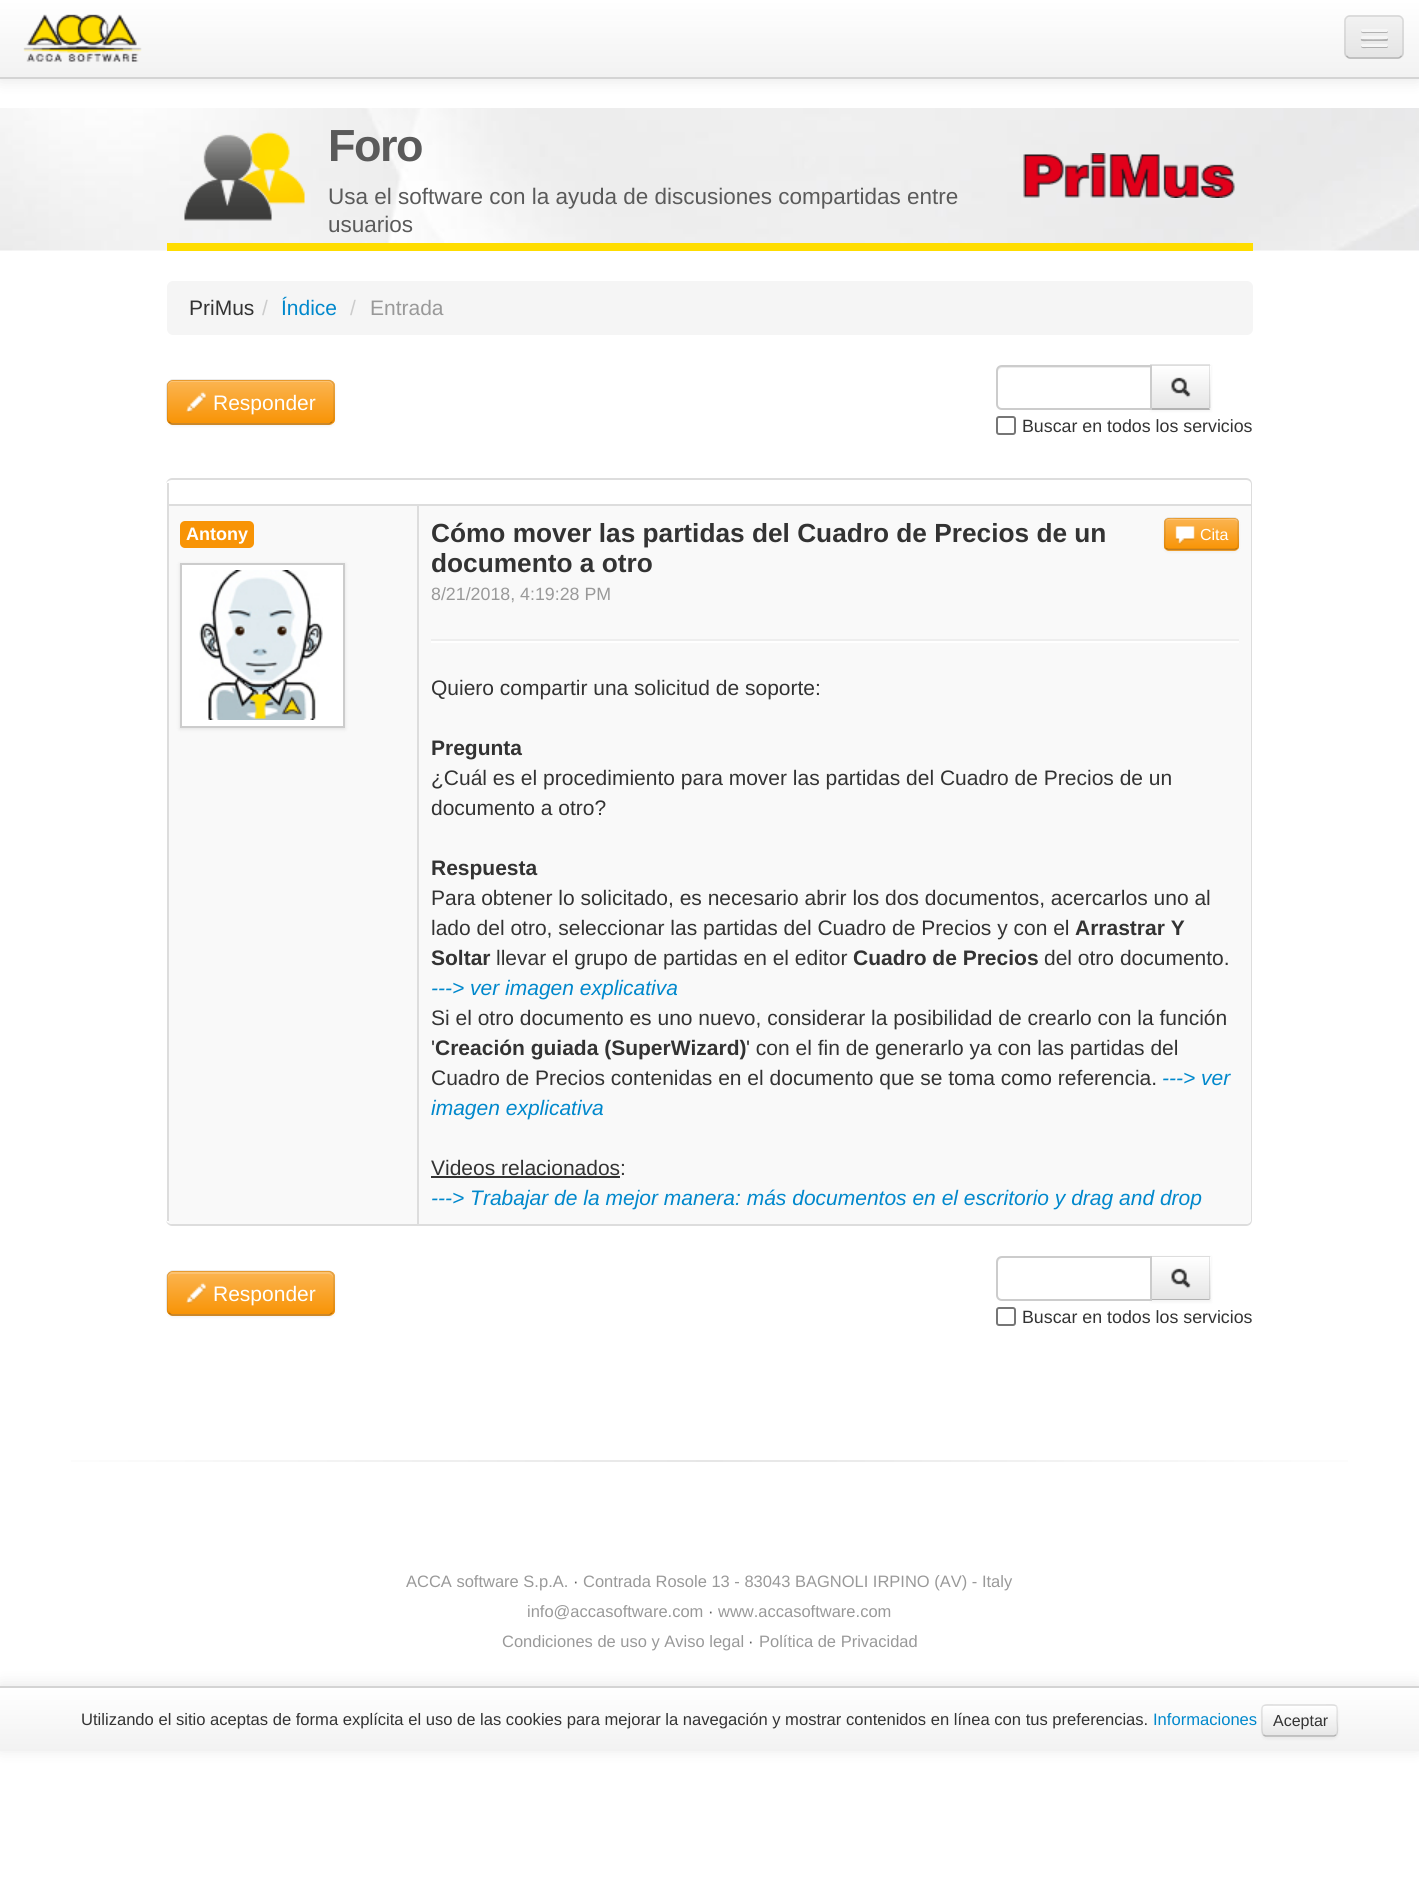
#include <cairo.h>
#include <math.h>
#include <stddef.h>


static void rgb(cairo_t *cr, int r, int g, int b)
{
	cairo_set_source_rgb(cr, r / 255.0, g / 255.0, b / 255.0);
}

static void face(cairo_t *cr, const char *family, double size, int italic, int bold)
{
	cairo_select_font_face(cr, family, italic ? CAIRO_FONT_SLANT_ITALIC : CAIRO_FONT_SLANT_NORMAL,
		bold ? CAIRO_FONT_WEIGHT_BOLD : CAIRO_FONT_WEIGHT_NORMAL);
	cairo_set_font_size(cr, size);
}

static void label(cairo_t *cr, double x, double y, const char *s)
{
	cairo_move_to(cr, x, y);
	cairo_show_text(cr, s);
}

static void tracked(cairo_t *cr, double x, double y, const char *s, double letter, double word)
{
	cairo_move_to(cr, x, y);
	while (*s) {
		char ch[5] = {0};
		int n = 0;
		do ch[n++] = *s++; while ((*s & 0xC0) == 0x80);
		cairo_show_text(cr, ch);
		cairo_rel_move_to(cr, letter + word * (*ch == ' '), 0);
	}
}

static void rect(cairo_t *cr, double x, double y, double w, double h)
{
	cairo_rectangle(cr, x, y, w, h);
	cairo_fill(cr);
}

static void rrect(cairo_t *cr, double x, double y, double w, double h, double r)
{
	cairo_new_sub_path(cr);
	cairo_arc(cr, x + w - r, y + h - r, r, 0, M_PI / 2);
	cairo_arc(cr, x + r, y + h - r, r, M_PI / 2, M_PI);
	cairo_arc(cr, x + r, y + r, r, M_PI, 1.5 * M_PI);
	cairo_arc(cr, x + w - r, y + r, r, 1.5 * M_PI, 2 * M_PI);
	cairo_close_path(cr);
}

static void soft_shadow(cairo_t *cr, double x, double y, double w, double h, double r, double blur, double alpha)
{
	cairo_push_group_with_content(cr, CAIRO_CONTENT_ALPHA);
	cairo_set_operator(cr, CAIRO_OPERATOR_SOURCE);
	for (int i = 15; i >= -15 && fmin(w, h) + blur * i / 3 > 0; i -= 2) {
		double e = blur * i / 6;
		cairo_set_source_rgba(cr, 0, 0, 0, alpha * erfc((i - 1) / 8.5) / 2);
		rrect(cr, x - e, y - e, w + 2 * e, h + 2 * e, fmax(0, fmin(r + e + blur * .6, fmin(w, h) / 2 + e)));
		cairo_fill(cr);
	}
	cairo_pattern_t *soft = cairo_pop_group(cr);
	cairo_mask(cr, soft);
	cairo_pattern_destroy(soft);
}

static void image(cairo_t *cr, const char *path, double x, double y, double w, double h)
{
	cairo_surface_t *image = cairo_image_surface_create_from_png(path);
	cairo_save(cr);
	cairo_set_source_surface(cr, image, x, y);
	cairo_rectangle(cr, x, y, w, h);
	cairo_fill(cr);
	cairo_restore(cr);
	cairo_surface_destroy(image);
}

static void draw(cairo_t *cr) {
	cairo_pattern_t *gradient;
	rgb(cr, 255, 255, 255);
	cairo_paint(cr);
	rgb(cr, 0, 0, 0);
	soft_shadow(cr, 0, 2, 1419, 78, 0, 7.5, 0.1);
	gradient = cairo_pattern_create_linear(710, 0, 710, 77);
	cairo_pattern_add_color_stop_rgba(gradient, 0, 1, 1, 1, 1);
	cairo_pattern_add_color_stop_rgba(gradient, 1, 0.949, 0.949, 0.949, 1);
	cairo_set_source(cr, gradient);
	cairo_pattern_destroy(gradient);
	rect(cr, 0, 0, 1419, 77);
	rgb(cr, 212, 212, 212);
	rect(cr, 0, 77, 1419, 2);
	image(cr, "image0.png", 23, 14, 119, 48);
	rgb(cr, 237, 237, 237);
	rrect(cr, 1344, 15, 60, 44, 6);
	cairo_fill(cr);
	cairo_save(cr);
	rrect(cr, 1344, 15, 60, 44, 6);
	cairo_clip(cr);
	gradient = cairo_pattern_create_linear(1374, 16, 1374, 57);
	cairo_pattern_add_color_stop_rgba(gradient, 0, 0.949, 0.949, 0.949, 1);
	cairo_pattern_add_color_stop_rgba(gradient, 1, 0.898, 0.898, 0.898, 1);
	cairo_set_source(cr, gradient);
	cairo_pattern_destroy(gradient);
	rect(cr, 1344, 17, 60, 40);
	cairo_restore(cr);
	cairo_new_path(cr);
	cairo_move_to(cr, 1401.5, 56);
	cairo_curve_to(cr, 1400.5, 57, 1399.5, 58, 1398, 58);
	cairo_line_to(cr, 1350, 58);
	cairo_curve_to(cr, 1348.5, 58, 1347.5, 57, 1346.5, 56);
	cairo_set_source_rgba(cr, 0, 0, 0, 0.25);
	cairo_set_line_width(cr, 1.5);
	cairo_stroke(cr);
	cairo_new_path(cr);
	cairo_move_to(cr, 1346.5, 56);
	cairo_curve_to(cr, 1345.5, 55, 1345, 54, 1345, 52.5);
	cairo_line_to(cr, 1345, 21);
	cairo_curve_to(cr, 1345, 19.5, 1345.5, 18.5, 1346.5, 17.5);
	cairo_curve_to(cr, 1347.5, 16.5, 1348.5, 16, 1350, 16);
	cairo_line_to(cr, 1398, 16);
	cairo_curve_to(cr, 1399.5, 16, 1400.5, 16.5, 1401.5, 17.5);
	cairo_curve_to(cr, 1402.5, 18.5, 1403, 19.5, 1403, 21);
	cairo_line_to(cr, 1403, 52.5);
	cairo_curve_to(cr, 1403, 54, 1402.5, 55, 1401.5, 56);
	cairo_set_source_rgba(cr, 0, 0, 0, 0.1);
	cairo_stroke(cr);
	rgb(cr, 178, 178, 178);
	cairo_new_path(cr);
	cairo_move_to(cr, 1361, 31);
	cairo_curve_to(cr, 1360.5, 34, 1366, 33, 1366.5, 33);
	cairo_line_to(cr, 1386.5, 33);
	cairo_curve_to(cr, 1388, 33, 1388.5, 31, 1387.5, 30.5);
	cairo_line_to(cr, 1386.5, 31.5);
	cairo_curve_to(cr, 1385, 32, 1361.5, 31.5, 1361, 31);
	cairo_close_path(cr);
	cairo_fill(cr);
	rgb(cr, 245, 245, 245);
	rrect(cr, 1361, 29, 27, 3, 1.5);
	cairo_fill(cr);
	rgb(cr, 176, 176, 176);
	cairo_new_path(cr);
	cairo_move_to(cr, 1361, 39);
	cairo_curve_to(cr, 1359.5, 42, 1366.5, 41, 1366.5, 41);
	cairo_line_to(cr, 1387, 41);
	cairo_curve_to(cr, 1388, 40.5, 1388.5, 39, 1387.5, 38);
	cairo_line_to(cr, 1386, 39);
	cairo_curve_to(cr, 1384, 39.5, 1362, 39.5, 1361, 39);
	cairo_close_path(cr);
	cairo_fill(cr);
	rgb(cr, 245, 245, 245);
	rrect(cr, 1361, 36, 27, 3, 1.5);
	cairo_fill(cr);
	rgb(cr, 174, 174, 174);
	cairo_new_path(cr);
	cairo_move_to(cr, 1361, 46);
	cairo_curve_to(cr, 1360.5, 49, 1366, 48, 1366.5, 48);
	cairo_line_to(cr, 1386.5, 48);
	cairo_curve_to(cr, 1388, 48, 1388.5, 46, 1387.5, 45.5);
	cairo_line_to(cr, 1386.5, 46.5);
	cairo_curve_to(cr, 1385, 47, 1361.5, 46.5, 1361, 46);
	cairo_close_path(cr);
	cairo_fill(cr);
	rgb(cr, 245, 245, 245);
	rrect(cr, 1361, 44, 27, 3, 1.5);
	cairo_fill(cr);
	image(cr, "image1.png", 0, 108, 1419, 143);
	rgb(cr, 255, 221, 0);
	rect(cr, 167, 243, 1086, 8);
	image(cr, "image2.png", 184, 131, 121, 90);
	face(cr, "Liberation Sans", 45, 0, 1);
	rgb(cr, 90, 90, 90);
	tracked(cr, 328, 161, "Foro", -1.5, 0);
	face(cr, "Liberation Sans", 22.5, 0, 0);
	label(cr, 328, 204, "Usa el software con la ayuda de discusiones compartidas entre");
	label(cr, 328, 232, "usuarios");
	image(cr, "image3.png", 1023, 153, 212, 45);
	rgb(cr, 245, 245, 245);
	rrect(cr, 167, 281, 1086, 54, 6);
	cairo_fill(cr);
	face(cr, "Liberation Sans", 21, 0, 0);
	rgb(cr, 51, 51, 51);
	label(cr, 189, 315, "PriMus");
	rgb(cr, 204, 204, 204);
	label(cr, 262, 315, "/");
	rgb(cr, 0, 136, 204);
	label(cr, 281, 315, "Índice");
	rgb(cr, 204, 204, 204);
	label(cr, 350, 315, "/");
	rgb(cr, 153, 153, 153);
	label(cr, 370, 315, "Entrada");
	rgb(cr, 0, 0, 0);
	soft_shadow(cr, 167, 381, 168, 45, 6, 1.5, 0.05);
	rgb(cr, 250, 167, 50);
	rrect(cr, 167, 380, 168, 45, 6);
	cairo_fill(cr);
	cairo_save(cr);
	rrect(cr, 167, 380, 168, 45, 6);
	cairo_clip(cr);
	gradient = cairo_pattern_create_linear(251, 381, 251, 423);
	cairo_pattern_add_color_stop_rgba(gradient, 0, 0.984, 0.706, 0.314, 1);
	cairo_pattern_add_color_stop_rgba(gradient, 1, 0.973, 0.58, 0.024, 1);
	cairo_set_source(cr, gradient);
	cairo_pattern_destroy(gradient);
	rect(cr, 167, 381, 168, 42);
	cairo_restore(cr);
	cairo_set_source_rgba(cr, 1, 1, 1, 0.2);
	cairo_new_path(cr);
	cairo_move_to(cr, 172, 382);
	cairo_line_to(cr, 328, 382);
	cairo_curve_to(cr, 331, 382, 333, 385, 333, 387);
	cairo_line_to(cr, 333, 386);
	cairo_curve_to(cr, 333, 383, 331, 381, 328, 381);
	cairo_line_to(cr, 173, 381);
	cairo_curve_to(cr, 170, 381, 168, 383, 168, 386);
	cairo_line_to(cr, 168, 387);
	cairo_curve_to(cr, 168, 385, 170, 382, 172, 382);
	cairo_close_path(cr);
	cairo_fill(cr);
	cairo_new_path(cr);
	cairo_move_to(cr, 332, 422);
	cairo_curve_to(cr, 331, 423, 330, 424, 328.5, 424);
	cairo_line_to(cr, 172.5, 424);
	cairo_curve_to(cr, 171, 424, 170, 423, 169, 422);
	cairo_set_source_rgba(cr, 0, 0, 0, 0.25);
	cairo_stroke(cr);
	cairo_new_path(cr);
	cairo_move_to(cr, 169, 422);
	cairo_curve_to(cr, 168, 421, 167, 420, 167, 418.5);
	cairo_line_to(cr, 167, 385.5);
	cairo_curve_to(cr, 167, 384, 168, 383, 169, 382);
	cairo_curve_to(cr, 170, 381, 171, 380, 172.5, 380);
	cairo_line_to(cr, 328.5, 380);
	cairo_curve_to(cr, 330, 380, 331, 381, 332, 382);
	cairo_curve_to(cr, 333, 383, 334, 384, 334, 385.5);
	cairo_line_to(cr, 334, 418.5);
	cairo_curve_to(cr, 334, 420, 333, 421, 332, 422);
	cairo_set_source_rgba(cr, 0, 0, 0, 0.1);
	cairo_stroke(cr);
	image(cr, "image4.png", 186, 391, 20, 22);
	rgb(cr, 255, 255, 255);
	label(cr, 213, 410, "Responder");
	rgb(cr, 0, 0, 0);
	soft_shadow(cr, 1151, 366, 60, 45, 0, 1.5, 0.05);
	rgb(cr, 245, 245, 245);
	rect(cr, 1152, 365, 59, 45);
	cairo_set_source_rgba(cr, 0, 0, 0, 0.1);
	cairo_new_path(cr);
	cairo_move_to(cr, 1150, 364);
	cairo_line_to(cr, 1210, 364);
	cairo_line_to(cr, 1209, 366);
	cairo_line_to(cr, 1152, 366);
	cairo_close_path(cr);
	cairo_fill(cr);
	gradient = cairo_pattern_create_linear(1181, 366, 1181, 408);
	cairo_pattern_add_color_stop_rgba(gradient, 0, 1, 1, 1, 1);
	cairo_pattern_add_color_stop_rgba(gradient, 1, 0.902, 0.902, 0.902, 1);
	cairo_set_source(cr, gradient);
	cairo_pattern_destroy(gradient);
	rect(cr, 1152, 366, 59, 42);
	cairo_set_source_rgba(cr, 0, 0, 0, 0.1);
	cairo_new_path(cr);
	cairo_move_to(cr, 1210, 364);
	cairo_line_to(cr, 1210, 410);
	cairo_line_to(cr, 1209, 408);
	cairo_line_to(cr, 1209, 366);
	cairo_close_path(cr);
	cairo_fill(cr);
	rgb(cr, 179, 179, 179);
	cairo_new_path(cr);
	cairo_move_to(cr, 1210, 410);
	cairo_line_to(cr, 1150, 410);
	cairo_line_to(cr, 1152, 408);
	cairo_line_to(cr, 1209, 408);
	cairo_close_path(cr);
	cairo_fill(cr);
	cairo_set_source_rgba(cr, 0, 0, 0, 0.1);
	cairo_new_path(cr);
	cairo_move_to(cr, 1150, 410);
	cairo_line_to(cr, 1150, 364);
	cairo_line_to(cr, 1152, 366);
	cairo_line_to(cr, 1152, 408);
	cairo_close_path(cr);
	cairo_fill(cr);
	rgb(cr, 255, 255, 255);
	cairo_new_path(cr);
	cairo_move_to(cr, 1002, 365);
	cairo_line_to(cr, 1152, 365);
	cairo_line_to(cr, 1152, 410);
	cairo_line_to(cr, 1002, 410);
	cairo_curve_to(cr, 998.5, 410, 996, 407.5, 996, 404);
	cairo_line_to(cr, 996, 371);
	cairo_curve_to(cr, 996, 367.5, 998.5, 365, 1002, 365);
	cairo_close_path(cr);
	cairo_fill(cr);
	rgb(cr, 236, 236, 236);
	cairo_new_path(cr);
	cairo_move_to(cr, 1002, 368);
	cairo_line_to(cr, 1150, 368);
	cairo_line_to(cr, 1150, 408);
	cairo_line_to(cr, 1151, 408);
	cairo_line_to(cr, 1151, 366);
	cairo_line_to(cr, 1003, 366);
	cairo_curve_to(cr, 1000, 366, 998, 368, 998, 371);
	cairo_line_to(cr, 998, 372);
	cairo_curve_to(cr, 998, 370, 1000, 368, 1002, 368);
	cairo_close_path(cr);
	cairo_fill(cr);
	cairo_new_path(cr);
	cairo_move_to(cr, 1002, 366);
	cairo_line_to(cr, 1151, 366);
	cairo_line_to(cr, 1151, 409);
	cairo_line_to(cr, 1002, 409);
	cairo_curve_to(cr, 999, 409, 997, 407, 997, 404);
	cairo_line_to(cr, 997, 371);
	cairo_curve_to(cr, 997, 368, 999, 366, 1002, 366);
	cairo_close_path(cr);
	rgb(cr, 204, 204, 204);
	cairo_set_line_width(cr, 2);
	cairo_stroke(cr);
	image(cr, "image5.png", 1171, 377, 20, 21);
	rrect(cr, 997, 417, 18, 17, 2);
	rgb(cr, 118, 118, 118);
	cairo_stroke(cr);
	face(cr, "Liberation Sans", 17.8, 0, 0);
	rgb(cr, 51, 51, 51);
	label(cr, 1022, 432, "Buscar en todos los servicios");
	rgb(cr, 221, 221, 221);
	cairo_set_fill_rule(cr, CAIRO_FILL_RULE_EVEN_ODD);
	cairo_new_path(cr);
	cairo_move_to(cr, 172, 478);
	cairo_line_to(cr, 1246, 478);
	cairo_curve_to(cr, 1250, 478, 1252, 481, 1252, 484);
	cairo_line_to(cr, 1252, 1220);
	cairo_curve_to(cr, 1252, 1223, 1250, 1226, 1246, 1226);
	cairo_line_to(cr, 172, 1226);
	cairo_curve_to(cr, 169, 1226, 166, 1223, 166, 1220);
	cairo_line_to(cr, 166, 484);
	cairo_curve_to(cr, 166, 481, 169, 478, 172, 478);
	cairo_close_path(cr);
	cairo_move_to(cr, 172, 480);
	cairo_line_to(cr, 1246, 480);
	cairo_curve_to(cr, 1249, 480, 1251, 482, 1251, 484);
	cairo_line_to(cr, 1251, 1220);
	cairo_curve_to(cr, 1251, 1222, 1249, 1224, 1246, 1224);
	cairo_line_to(cr, 172, 1224);
	cairo_curve_to(cr, 169, 1224, 166, 1222, 166, 1220);
	cairo_line_to(cr, 166, 484);
	cairo_curve_to(cr, 166, 482, 169, 480, 172, 480);
	cairo_close_path(cr);
	cairo_fill(cr);
	rect(cr, 167, 483, 2, 21);
	rgb(cr, 249, 249, 249);
	cairo_new_path(cr);
	cairo_move_to(cr, 167, 504);
	cairo_line_to(cr, 417, 504);
	cairo_line_to(cr, 417, 1224);
	cairo_line_to(cr, 173, 1224);
	cairo_curve_to(cr, 169.5, 1224, 167, 1221.5, 167, 1218);
	cairo_close_path(cr);
	cairo_fill(cr);
	rgb(cr, 221, 221, 221);
	rect(cr, 167, 504, 250, 2);
	rect(cr, 167, 504, 2, 717);
	rgb(cr, 248, 148, 6);
	rrect(cr, 180, 521, 74, 27, 5);
	cairo_fill(cr);
	face(cr, "Liberation Sans", 18, 0, 1);
	rgb(cr, 255, 255, 255);
	label(cr, 186, 540, "Antony");
	rgb(cr, 0, 0, 0);
	soft_shadow(cr, 180, 564, 165, 165, 0, 2, 0.1);
	rgb(cr, 255, 255, 255);
	cairo_rectangle(cr, 181, 564, 163, 163);
	cairo_fill_preserve(cr);
	rgb(cr, 204, 204, 204);
	cairo_stroke(cr);
	image(cr, "image6.png", 199, 570, 124, 150);
	rgb(cr, 249, 249, 249);
	cairo_new_path(cr);
	cairo_move_to(cr, 417, 504);
	cairo_line_to(cr, 1251, 504);
	cairo_line_to(cr, 1251, 1218);
	cairo_curve_to(cr, 1251, 1221.5, 1248.5, 1224, 1245, 1224);
	cairo_line_to(cr, 417, 1224);
	cairo_close_path(cr);
	cairo_fill(cr);
	rgb(cr, 221, 221, 221);
	rect(cr, 417, 504, 834, 2);
	rect(cr, 417, 504, 2, 720);
	face(cr, "Liberation Sans", 26.25, 0, 1);
	rgb(cr, 51, 51, 51);
	label(cr, 431, 542, "Cómo mover las partidas del Cuadro de Precios de un");
	label(cr, 431, 572, "documento a otro");
	rgb(cr, 0, 0, 0);
	soft_shadow(cr, 1164, 519, 75, 33, 5, 1.5, 0.05);
	rgb(cr, 250, 167, 50);
	rrect(cr, 1164, 518, 75, 33, 5);
	cairo_fill(cr);
	cairo_save(cr);
	cairo_set_fill_rule(cr, CAIRO_FILL_RULE_WINDING);
	rrect(cr, 1164, 518, 75, 33, 5);
	cairo_clip(cr);
	gradient = cairo_pattern_create_linear(1202, 519, 1202, 549);
	cairo_pattern_add_color_stop_rgba(gradient, 0, 0.984, 0.706, 0.314, 1);
	cairo_pattern_add_color_stop_rgba(gradient, 1, 0.973, 0.58, 0.024, 1);
	cairo_set_source(cr, gradient);
	cairo_pattern_destroy(gradient);
	rect(cr, 1164, 519, 75, 30);
	cairo_restore(cr);
	cairo_set_source_rgba(cr, 1, 1, 1, 0.2);
	cairo_set_fill_rule(cr, CAIRO_FILL_RULE_WINDING);
	cairo_new_path(cr);
	cairo_move_to(cr, 1168, 520);
	cairo_line_to(cr, 1234, 520);
	cairo_curve_to(cr, 1236, 520, 1238, 522, 1238, 524);
	cairo_curve_to(cr, 1238, 516, 1232, 519, 1224, 519);
	cairo_line_to(cr, 1180, 519);
	cairo_curve_to(cr, 1172, 519, 1166, 516, 1166, 524);
	cairo_curve_to(cr, 1166, 522, 1167, 520, 1168, 520);
	cairo_close_path(cr);
	cairo_fill(cr);
	cairo_new_path(cr);
	cairo_move_to(cr, 1237, 548.5);
	cairo_line_to(cr, 1235, 549.5);
	cairo_line_to(cr, 1168, 549.5);
	cairo_line_to(cr, 1166, 548.5);
	cairo_set_source_rgba(cr, 0, 0, 0, 0.25);
	cairo_set_line_width(cr, 1.5);
	cairo_stroke(cr);
	cairo_new_path(cr);
	cairo_move_to(cr, 1166, 548.5);
	cairo_curve_to(cr, 1163.5, 546.5, 1165, 537, 1165, 534);
	cairo_curve_to(cr, 1165, 516.5, 1162, 518, 1179.5, 518);
	cairo_line_to(cr, 1223.5, 518);
	cairo_curve_to(cr, 1241, 518, 1238, 516.5, 1238, 534);
	cairo_curve_to(cr, 1238, 537, 1239.5, 546.5, 1237, 548.5);
	cairo_set_source_rgba(cr, 0, 0, 0, 0.1);
	cairo_stroke(cr);
	image(cr, "image7.png", 1175, 526, 20, 19);
	face(cr, "Liberation Sans", 16, 0, 0);
	rgb(cr, 255, 255, 255);
	label(cr, 1200, 540, "Cita");
	face(cr, "Liberation Sans", 17.8, 0, 0);
	rgb(cr, 153, 153, 153);
	label(cr, 431, 600, "8/21/2018, 4:19:28 PM");
	rgb(cr, 238, 238, 238);
	rect(cr, 431, 639, 808, 2);
	rgb(cr, 255, 255, 255);
	rect(cr, 431, 641, 808, 2);
	face(cr, "Liberation Sans", 21, 0, 0);
	rgb(cr, 51, 51, 51);
	label(cr, 431, 695, "Quiero compartir una solicitud de soporte:");
	face(cr, "Liberation Sans", 21, 0, 1);
	label(cr, 431, 755, "Pregunta");
	face(cr, "Liberation Sans", 21, 0, 0);
	label(cr, 431, 785, "¿Cuál es el procedimiento para mover las partidas del Cuadro de Precios de un");
	label(cr, 431, 815, "documento a otro?");
	face(cr, "Liberation Sans", 21, 0, 1);
	label(cr, 431, 875, "Respuesta");
	face(cr, "Liberation Sans", 21, 0, 0);
	label(cr, 431, 905, "Para obtener lo solicitado, es necesario abrir los dos documentos, acercarlos uno al");
	label(cr, 431, 935, "lado del otro, seleccionar las partidas del Cuadro de Precios y con el");
	face(cr, "Liberation Sans", 21, 0, 1);
	label(cr, 1075, 935, "Arrastrar Y");
	label(cr, 431, 965, "Soltar");
	face(cr, "Liberation Sans", 21, 0, 0);
	label(cr, 496, 965, "llevar el grupo de partidas en el editor");
	face(cr, "Liberation Sans", 21, 0, 1);
	label(cr, 853, 965, "Cuadro de Precios");
	face(cr, "Liberation Sans", 21, 0, 0);
	label(cr, 1044, 965, "del otro documento.");
	face(cr, "Liberation Sans", 21, 1, 0);
	rgb(cr, 0, 136, 204);
	label(cr, 431, 995, "---> ver imagen explicativa");
	face(cr, "Liberation Sans", 21, 0, 0);
	rgb(cr, 51, 51, 51);
	label(cr, 431, 1025, "Si el otro documento es uno nuevo, considerar la posibilidad de crearlo con la función");
	label(cr, 431, 1055, "'");
	face(cr, "Liberation Sans", 21, 0, 1);
	label(cr, 435, 1055, "Creación guiada (SuperWizard)");
	face(cr, "Liberation Sans", 21, 0, 0);
	label(cr, 746, 1055, "' con el fin de generarlo ya con las partidas del");
	label(cr, 431, 1085, "Cuadro de Precios contenidas en el documento que se toma como referencia.");
	face(cr, "Liberation Sans", 21, 1, 0);
	rgb(cr, 0, 136, 204);
	label(cr, 1162, 1085, "---> ver");
	label(cr, 431, 1115, "imagen explicativa");
	face(cr, "Liberation Sans", 21, 0, 0);
	rgb(cr, 51, 51, 51);
	label(cr, 431, 1175, "Videos relacionados:");
	rect(cr, 431, 1176, 189, 2);
	face(cr, "Liberation Sans", 21, 1, 0);
	rgb(cr, 0, 136, 204);
	label(cr, 431, 1205, "---> Trabajar de la mejor manera: más documentos en el escritorio y drag and drop");
	rgb(cr, 0, 0, 0);
	soft_shadow(cr, 167, 1272, 168, 45, 6, 1.5, 0.05);
	rgb(cr, 250, 167, 50);
	rrect(cr, 167, 1271, 168, 45, 6);
	cairo_fill(cr);
	cairo_save(cr);
	rrect(cr, 167, 1271, 168, 45, 6);
	cairo_clip(cr);
	gradient = cairo_pattern_create_linear(251, 1272, 251, 1314);
	cairo_pattern_add_color_stop_rgba(gradient, 0, 0.984, 0.706, 0.314, 1);
	cairo_pattern_add_color_stop_rgba(gradient, 1, 0.973, 0.58, 0.024, 1);
	cairo_set_source(cr, gradient);
	cairo_pattern_destroy(gradient);
	rect(cr, 167, 1272, 168, 42);
	cairo_restore(cr);
	cairo_set_source_rgba(cr, 1, 1, 1, 0.2);
	cairo_new_path(cr);
	cairo_move_to(cr, 172, 1274);
	cairo_line_to(cr, 328, 1274);
	cairo_curve_to(cr, 331, 1274, 333, 1276, 333, 1278);
	cairo_line_to(cr, 333, 1277);
	cairo_curve_to(cr, 333, 1274, 331, 1272, 328, 1272);
	cairo_line_to(cr, 173, 1272);
	cairo_curve_to(cr, 170, 1272, 168, 1274, 168, 1277);
	cairo_line_to(cr, 168, 1278);
	cairo_curve_to(cr, 168, 1276, 170, 1274, 172, 1274);
	cairo_close_path(cr);
	cairo_fill(cr);
	cairo_new_path(cr);
	cairo_move_to(cr, 332, 1313);
	cairo_curve_to(cr, 331, 1314, 330, 1315, 328.5, 1315);
	cairo_line_to(cr, 172.5, 1315);
	cairo_curve_to(cr, 171, 1315, 170, 1314, 169, 1313);
	cairo_set_source_rgba(cr, 0, 0, 0, 0.25);
	cairo_stroke(cr);
	cairo_new_path(cr);
	cairo_move_to(cr, 169, 1313);
	cairo_curve_to(cr, 168, 1312, 167, 1311, 167, 1309.5);
	cairo_line_to(cr, 167, 1276.5);
	cairo_curve_to(cr, 167, 1275, 168, 1274, 169, 1273);
	cairo_curve_to(cr, 170, 1272, 171, 1271, 172.5, 1271);
	cairo_line_to(cr, 328.5, 1271);
	cairo_curve_to(cr, 330, 1271, 331, 1272, 332, 1273);
	cairo_curve_to(cr, 333, 1274, 334, 1275, 334, 1276.5);
	cairo_line_to(cr, 334, 1309.5);
	cairo_curve_to(cr, 334, 1311, 333, 1312, 332, 1313);
	cairo_set_source_rgba(cr, 0, 0, 0, 0.1);
	cairo_stroke(cr);
	image(cr, "image4.png", 186, 1282, 20, 22);
	face(cr, "Liberation Sans", 21, 0, 0);
	rgb(cr, 255, 255, 255);
	label(cr, 213, 1301, "Responder");
	rgb(cr, 0, 0, 0);
	soft_shadow(cr, 1151, 1257, 60, 45, 0, 1.5, 0.05);
	rgb(cr, 245, 245, 245);
	rect(cr, 1152, 1256, 59, 45);
	rgb(cr, 221, 221, 221);
	cairo_new_path(cr);
	cairo_move_to(cr, 1150, 1256);
	cairo_line_to(cr, 1210, 1256);
	cairo_line_to(cr, 1209, 1257);
	cairo_line_to(cr, 1152, 1257);
	cairo_close_path(cr);
	cairo_fill(cr);
	gradient = cairo_pattern_create_linear(1181, 1257, 1181, 1299);
	cairo_pattern_add_color_stop_rgba(gradient, 0, 1, 1, 1, 1);
	cairo_pattern_add_color_stop_rgba(gradient, 1, 0.902, 0.902, 0.902, 1);
	cairo_set_source(cr, gradient);
	cairo_pattern_destroy(gradient);
	rect(cr, 1152, 1257, 59, 42);
	cairo_set_source_rgba(cr, 0, 0, 0, 0.1);
	cairo_new_path(cr);
	cairo_move_to(cr, 1210, 1256);
	cairo_line_to(cr, 1210, 1300);
	cairo_line_to(cr, 1209, 1299);
	cairo_line_to(cr, 1209, 1257);
	cairo_close_path(cr);
	cairo_fill(cr);
	rgb(cr, 179, 179, 179);
	cairo_new_path(cr);
	cairo_move_to(cr, 1210, 1300);
	cairo_line_to(cr, 1150, 1300);
	cairo_line_to(cr, 1152, 1299);
	cairo_line_to(cr, 1209, 1299);
	cairo_close_path(cr);
	cairo_fill(cr);
	rgb(cr, 255, 255, 255);
	cairo_new_path(cr);
	cairo_move_to(cr, 1002, 1256);
	cairo_line_to(cr, 1152, 1256);
	cairo_line_to(cr, 1152, 1301);
	cairo_line_to(cr, 1002, 1301);
	cairo_curve_to(cr, 998.5, 1301, 996, 1298.5, 996, 1295);
	cairo_line_to(cr, 996, 1262);
	cairo_curve_to(cr, 996, 1258.5, 998.5, 1256, 1002, 1256);
	cairo_close_path(cr);
	cairo_fill(cr);
	rgb(cr, 236, 236, 236);
	cairo_new_path(cr);
	cairo_move_to(cr, 1002, 1258);
	cairo_line_to(cr, 1150, 1258);
	cairo_line_to(cr, 1150, 1299);
	cairo_line_to(cr, 1151, 1299);
	cairo_line_to(cr, 1151, 1257);
	cairo_line_to(cr, 1003, 1257);
	cairo_curve_to(cr, 1000, 1257, 998, 1259, 998, 1262);
	cairo_line_to(cr, 998, 1263);
	cairo_curve_to(cr, 998, 1261, 1000, 1258, 1002, 1258);
	cairo_close_path(cr);
	cairo_fill(cr);
	cairo_new_path(cr);
	cairo_move_to(cr, 1002, 1257);
	cairo_line_to(cr, 1151, 1257);
	cairo_line_to(cr, 1151, 1300);
	cairo_line_to(cr, 1002, 1300);
	cairo_curve_to(cr, 999, 1300, 997, 1298, 997, 1295);
	cairo_line_to(cr, 997, 1262);
	cairo_curve_to(cr, 997, 1259, 999, 1257, 1002, 1257);
	cairo_close_path(cr);
	rgb(cr, 204, 204, 204);
	cairo_set_line_width(cr, 2);
	cairo_stroke(cr);
	image(cr, "image5.png", 1171, 1268, 20, 21);
	rrect(cr, 997, 1308, 18, 17, 2);
	rgb(cr, 118, 118, 118);
	cairo_stroke(cr);
	face(cr, "Liberation Sans", 17.8, 0, 0);
	rgb(cr, 51, 51, 51);
	label(cr, 1022, 1323, "Buscar en todos los servicios");
	gradient = cairo_pattern_create_linear(0, 1460, 1419, 1460);
	cairo_pattern_add_color_stop_rgba(gradient, 0, 1, 1, 1, 1);
	cairo_pattern_add_color_stop_rgba(gradient, 0.5, 0.902, 0.902, 0.902, 1);
	cairo_pattern_add_color_stop_rgba(gradient, 1, 1, 1, 1, 1);
	cairo_set_source(cr, gradient);
	cairo_pattern_destroy(gradient);
	rect(cr, 71, 1460, 1277, 2);
	face(cr, "Liberation Sans", 16.5, 0, 0);
	rgb(cr, 153, 153, 153);
	label(cr, 406, 1587, "ACCA software S.p.A.");
	rgb(cr, 90, 90, 90);
	label(cr, 573, 1587, "·");
	rgb(cr, 153, 153, 153);
	label(cr, 583, 1587, "Contrada Rosole 13 - 83043 BAGNOLI IRPINO (AV) - Italy");
	label(cr, 527, 1617, "info@accasoftware.com");
	rgb(cr, 90, 90, 90);
	label(cr, 708, 1617, "·");
	rgb(cr, 153, 153, 153);
	label(cr, 718, 1617, "www.accasoftware.com");
	label(cr, 502, 1647, "Condiciones de uso y Aviso legal");
	rgb(cr, 90, 90, 90);
	label(cr, 748, 1647, "·");
	rgb(cr, 153, 153, 153);
	label(cr, 759, 1647, "Política de Privacidad");
	rgb(cr, 0, 0, 0);
	soft_shadow(cr, 0, 1685, 1419, 64, 0, 7.5, 0.1);
	gradient = cairo_pattern_create_linear(710, 1688, 710, 1751);
	cairo_pattern_add_color_stop_rgba(gradient, 0, 1, 1, 1, 1);
	cairo_pattern_add_color_stop_rgba(gradient, 1, 0.949, 0.949, 0.949, 1);
	cairo_set_source(cr, gradient);
	cairo_pattern_destroy(gradient);
	rect(cr, 0, 1688, 1419, 63);
	rgb(cr, 212, 212, 212);
	rect(cr, 0, 1686, 1419, 2);
	face(cr, "Liberation Sans", 16.58, 0, 0);
	rgb(cr, 51, 51, 51);
	label(cr, 81, 1725, "Utilizando el sitio aceptas de forma explícita el uso de las cookies para mejorar la navegación y mostrar contenidos en línea con tus preferencias.");
	rgb(cr, 0, 136, 204);
	label(cr, 1153, 1725, "Informaciones");
	rgb(cr, 0, 0, 0);
	soft_shadow(cr, 1262, 1706, 76, 33, 5, 1.5, 0.05);
	rgb(cr, 245, 245, 245);
	rrect(cr, 1262, 1704, 76, 33, 5);
	cairo_fill(cr);
	cairo_save(cr);
	rrect(cr, 1262, 1704, 76, 33, 5);
	cairo_clip(cr);
	gradient = cairo_pattern_create_linear(1300, 1706, 1300, 1736);
	cairo_pattern_add_color_stop_rgba(gradient, 0, 1, 1, 1, 1);
	cairo_pattern_add_color_stop_rgba(gradient, 1, 0.902, 0.902, 0.902, 1);
	cairo_set_source(cr, gradient);
	cairo_pattern_destroy(gradient);
	rect(cr, 1262, 1706, 76, 30);
	cairo_restore(cr);
	cairo_set_source_rgba(cr, 1, 1, 1, 0.2);
	cairo_new_path(cr);
	cairo_move_to(cr, 1266, 1707);
	cairo_line_to(cr, 1323, 1707);
	cairo_curve_to(cr, 1338, 1707, 1336, 1704, 1336, 1718);
	cairo_line_to(cr, 1336, 1735);
	cairo_curve_to(cr, 1337, 1735, 1337, 1734, 1337, 1733);
	cairo_line_to(cr, 1337, 1709);
	cairo_curve_to(cr, 1337, 1707, 1336, 1706, 1334, 1706);
	cairo_line_to(cr, 1266, 1706);
	cairo_curve_to(cr, 1264, 1706, 1263, 1707, 1263, 1709);
	cairo_line_to(cr, 1263, 1710);
	cairo_curve_to(cr, 1263, 1708, 1264, 1707, 1266, 1707);
	cairo_close_path(cr);
	cairo_fill(cr);
	cairo_new_path(cr);
	cairo_move_to(cr, 1336, 1735);
	cairo_line_to(cr, 1334, 1736);
	cairo_line_to(cr, 1265.5, 1736);
	cairo_line_to(cr, 1263.5, 1735);
	rgb(cr, 179, 179, 179);
	cairo_set_line_width(cr, 1.5);
	cairo_stroke(cr);
	cairo_new_path(cr);
	cairo_move_to(cr, 1263.5, 1735);
	cairo_curve_to(cr, 1261, 1733, 1262, 1723.5, 1262, 1720.5);
	cairo_curve_to(cr, 1262, 1703, 1259.5, 1705, 1277, 1705);
	cairo_line_to(cr, 1322, 1705);
	cairo_curve_to(cr, 1340, 1705, 1337, 1703, 1337, 1720.5);
	cairo_curve_to(cr, 1337, 1723.5, 1338.5, 1733, 1336, 1735);
	cairo_set_source_rgba(cr, 0, 0, 0, 0.1);
	cairo_stroke(cr);
	face(cr, "Liberation Sans", 16, 0, 0);
	rgb(cr, 51, 51, 51);
	label(cr, 1273, 1726, "Aceptar");
}

int main(void) {
	cairo_surface_t *surface = cairo_image_surface_create(CAIRO_FORMAT_RGB24, 1419, 1887);
	cairo_t *cr = cairo_create(surface);
	cairo_font_options_t *options = cairo_font_options_create();
	cairo_font_options_set_hint_metrics(options, CAIRO_HINT_METRICS_OFF);
	cairo_font_options_set_hint_style(options, CAIRO_HINT_STYLE_NONE);
	cairo_set_font_options(cr, options);
	cairo_set_miter_limit(cr, 4);
	draw(cr);
	cairo_surface_write_to_png(surface, "render.png");
	cairo_font_options_destroy(options);
	cairo_destroy(cr);
	cairo_surface_destroy(surface);
	return 0;
}
